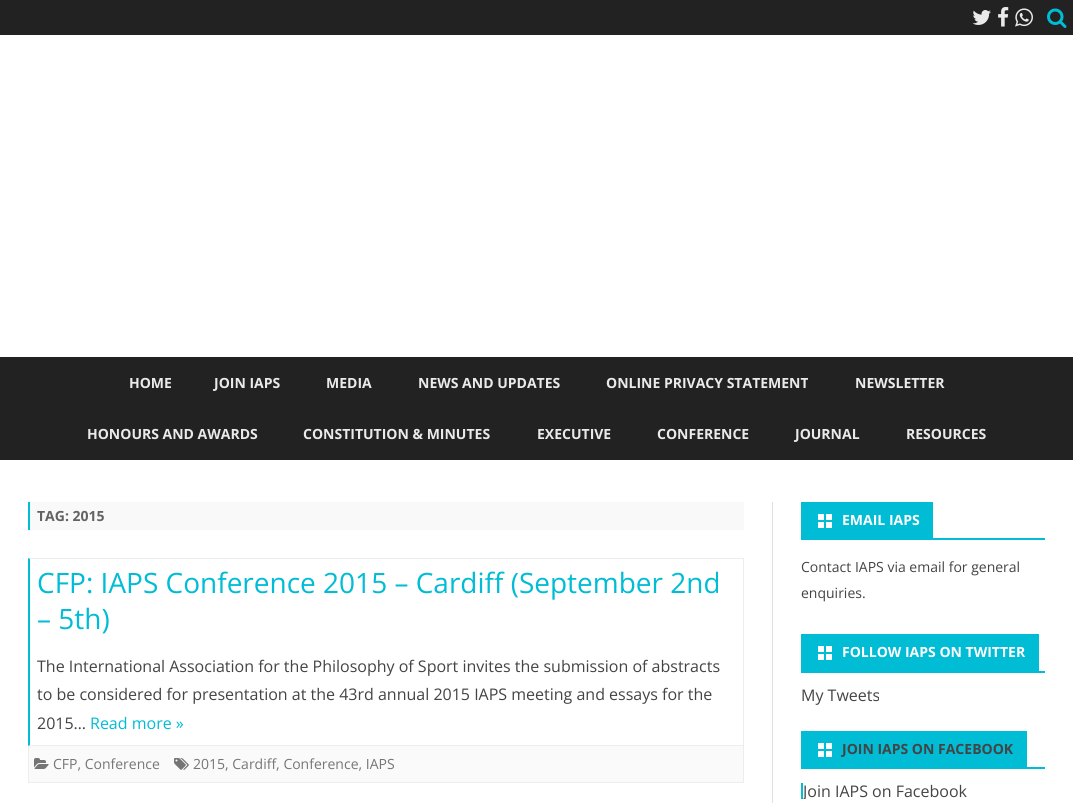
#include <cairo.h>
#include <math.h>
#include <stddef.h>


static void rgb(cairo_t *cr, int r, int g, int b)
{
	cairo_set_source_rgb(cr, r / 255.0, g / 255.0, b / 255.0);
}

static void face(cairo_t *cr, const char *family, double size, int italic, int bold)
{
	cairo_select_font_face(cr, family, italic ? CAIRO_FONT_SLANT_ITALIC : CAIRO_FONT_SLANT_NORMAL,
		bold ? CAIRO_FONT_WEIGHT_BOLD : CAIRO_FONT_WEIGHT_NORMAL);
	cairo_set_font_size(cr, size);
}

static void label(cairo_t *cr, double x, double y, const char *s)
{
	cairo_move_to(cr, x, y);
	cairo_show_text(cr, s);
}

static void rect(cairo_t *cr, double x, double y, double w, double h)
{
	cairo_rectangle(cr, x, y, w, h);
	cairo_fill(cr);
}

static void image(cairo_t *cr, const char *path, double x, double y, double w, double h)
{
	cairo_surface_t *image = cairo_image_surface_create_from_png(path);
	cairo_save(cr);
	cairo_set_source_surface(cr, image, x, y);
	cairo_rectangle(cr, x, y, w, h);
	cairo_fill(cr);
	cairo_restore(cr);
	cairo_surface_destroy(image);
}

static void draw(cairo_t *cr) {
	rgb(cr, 255, 255, 255);
	cairo_paint(cr);
	rgb(cr, 34, 34, 34);
	rect(cr, 0, 0, 1073, 35);
	image(cr, "image0.png", 972, 10, 19, 15);
	image(cr, "image1.png", 998, 7, 11, 20);
	image(cr, "image2.png", 1015, 8, 18, 19);
	image(cr, "image3.png", 1047, 8, 20, 20);
	rect(cr, 0, 357, 1073, 103);
	face(cr, "Open Sans", 14, 0, 1);
	rgb(cr, 234, 234, 234);
	label(cr, 129, 388, "HOME");
	label(cr, 214, 388, "JOIN IAPS");
	label(cr, 326, 388, "MEDIA");
	label(cr, 418, 388, "NEWS AND UPDATES");
	label(cr, 606, 388, "ONLINE PRIVACY STATEMENT");
	label(cr, 855, 388, "NEWSLETTER");
	label(cr, 87, 439, "HONOURS AND AWARDS");
	label(cr, 303, 439, "CONSTITUTION & MINUTES");
	label(cr, 537, 439, "EXECUTIVE");
	label(cr, 657, 439, "CONFERENCE");
	label(cr, 795, 439, "JOURNAL");
	label(cr, 906, 439, "RESOURCES");
	rgb(cr, 224, 224, 224);
	rect(cr, 772, 502, 1, 301);
	rgb(cr, 249, 249, 249);
	rect(cr, 30, 502, 714, 28);
	rgb(cr, 0, 188, 213);
	rect(cr, 28, 502, 2, 28);
	rgb(cr, 99, 99, 99);
	label(cr, 37, 521, "TAG: 2015");
	rgb(cr, 237, 237, 237);
	cairo_new_path(cr);
	cairo_move_to(cr, 28, 558);
	cairo_line_to(cr, 744, 558);
	cairo_line_to(cr, 743, 559);
	cairo_line_to(cr, 30, 559);
	cairo_close_path(cr);
	cairo_fill(cr);
	rect(cr, 743, 558, 1, 188);
	cairo_new_path(cr);
	cairo_move_to(cr, 744, 746);
	cairo_line_to(cr, 28, 746);
	cairo_line_to(cr, 30, 745);
	cairo_line_to(cr, 743, 745);
	cairo_close_path(cr);
	cairo_fill(cr);
	rgb(cr, 0, 188, 213);
	cairo_new_path(cr);
	cairo_move_to(cr, 28, 746);
	cairo_line_to(cr, 28, 558);
	cairo_line_to(cr, 30, 559);
	cairo_line_to(cr, 30, 745);
	cairo_close_path(cr);
	cairo_fill(cr);
	face(cr, "Open Sans", 28, 0, 0);
	label(cr, 37, 593, "CFP: IAPS Conference 2015 – Cardiff (September 2nd");
	label(cr, 37, 629, "– 5th)");
	face(cr, "Open Sans", 16, 0, 0);
	rgb(cr, 68, 68, 68);
	label(cr, 37, 672, "The International Association for the Philosophy of Sport invites the submission of abstracts");
	label(cr, 37, 700, "to be considered for presentation at the 43rd annual 2015 IAPS meeting and essays for the");
	label(cr, 37, 729, "2015…");
	rgb(cr, 0, 188, 213);
	label(cr, 90, 729, "Read more »");
	rgb(cr, 250, 250, 250);
	rect(cr, 29, 746, 714, 36);
	rgb(cr, 237, 237, 237);
	rect(cr, 743, 746, 1, 37);
	rect(cr, 28, 782, 716, 1);
	rect(cr, 28, 746, 1, 37);
	image(cr, "image4.png", 34, 758, 15, 11);
	face(cr, "Open Sans", 14, 0, 0);
	rgb(cr, 117, 117, 117);
	label(cr, 53, 769, "CFP, Conference");
	image(cr, "image5.png", 174, 758, 15, 12);
	label(cr, 193, 769, "2015, Cardiff, Conference, IAPS");
	rgb(cr, 0, 188, 213);
	rect(cr, 801, 538, 244, 2);
	rect(cr, 801, 502, 132, 36);
	image(cr, "image6.png", 818, 514, 14, 14);
	face(cr, "Open Sans", 14, 0, 1);
	rgb(cr, 255, 255, 255);
	label(cr, 842, 525, "EMAIL IAPS");
	face(cr, "Open Sans", 14, 0, 0);
	rgb(cr, 68, 68, 68);
	label(cr, 801, 572, "Contact IAPS via email for general");
	label(cr, 801, 598, "enquiries.");
	rgb(cr, 0, 188, 213);
	rect(cr, 801, 671, 244, 2);
	rect(cr, 801, 634, 238, 37);
	image(cr, "image6.png", 818, 646, 14, 14);
	face(cr, "Open Sans", 14, 0, 1);
	rgb(cr, 255, 255, 255);
	label(cr, 842, 657, "FOLLOW IAPS ON TWITTER");
	face(cr, "Open Sans", 16, 0, 0);
	rgb(cr, 68, 68, 68);
	label(cr, 801, 701, "My Tweets");
	rgb(cr, 0, 188, 213);
	rect(cr, 801, 767, 244, 2);
	rect(cr, 801, 731, 226, 36);
	image(cr, "image6.png", 818, 743, 14, 14);
	face(cr, "Open Sans", 14, 0, 1);
	rgb(cr, 68, 68, 68);
	label(cr, 842, 754, "JOIN IAPS ON FACEBOOK");
	rgb(cr, 0, 188, 213);
	rect(cr, 801, 783, 2, 16);
	cairo_save(cr);
	cairo_rectangle(cr, 801, 731, 244, 68);
	cairo_clip(cr);
	face(cr, "Open Sans", 16, 0, 0);
	rgb(cr, 68, 68, 68);
	label(cr, 803, 797, "Join IAPS on Facebook");
	cairo_restore(cr);
}

int main(void) {
	cairo_surface_t *surface = cairo_image_surface_create(CAIRO_FORMAT_RGB24, 1073, 803);
	cairo_t *cr = cairo_create(surface);
	cairo_font_options_t *options = cairo_font_options_create();
	cairo_font_options_set_hint_metrics(options, CAIRO_HINT_METRICS_OFF);
	cairo_font_options_set_hint_style(options, CAIRO_HINT_STYLE_NONE);
	cairo_set_font_options(cr, options);
	cairo_set_miter_limit(cr, 4);
	draw(cr);
	cairo_surface_write_to_png(surface, "render.png");
	cairo_font_options_destroy(options);
	cairo_destroy(cr);
	cairo_surface_destroy(surface);
	return 0;
}
